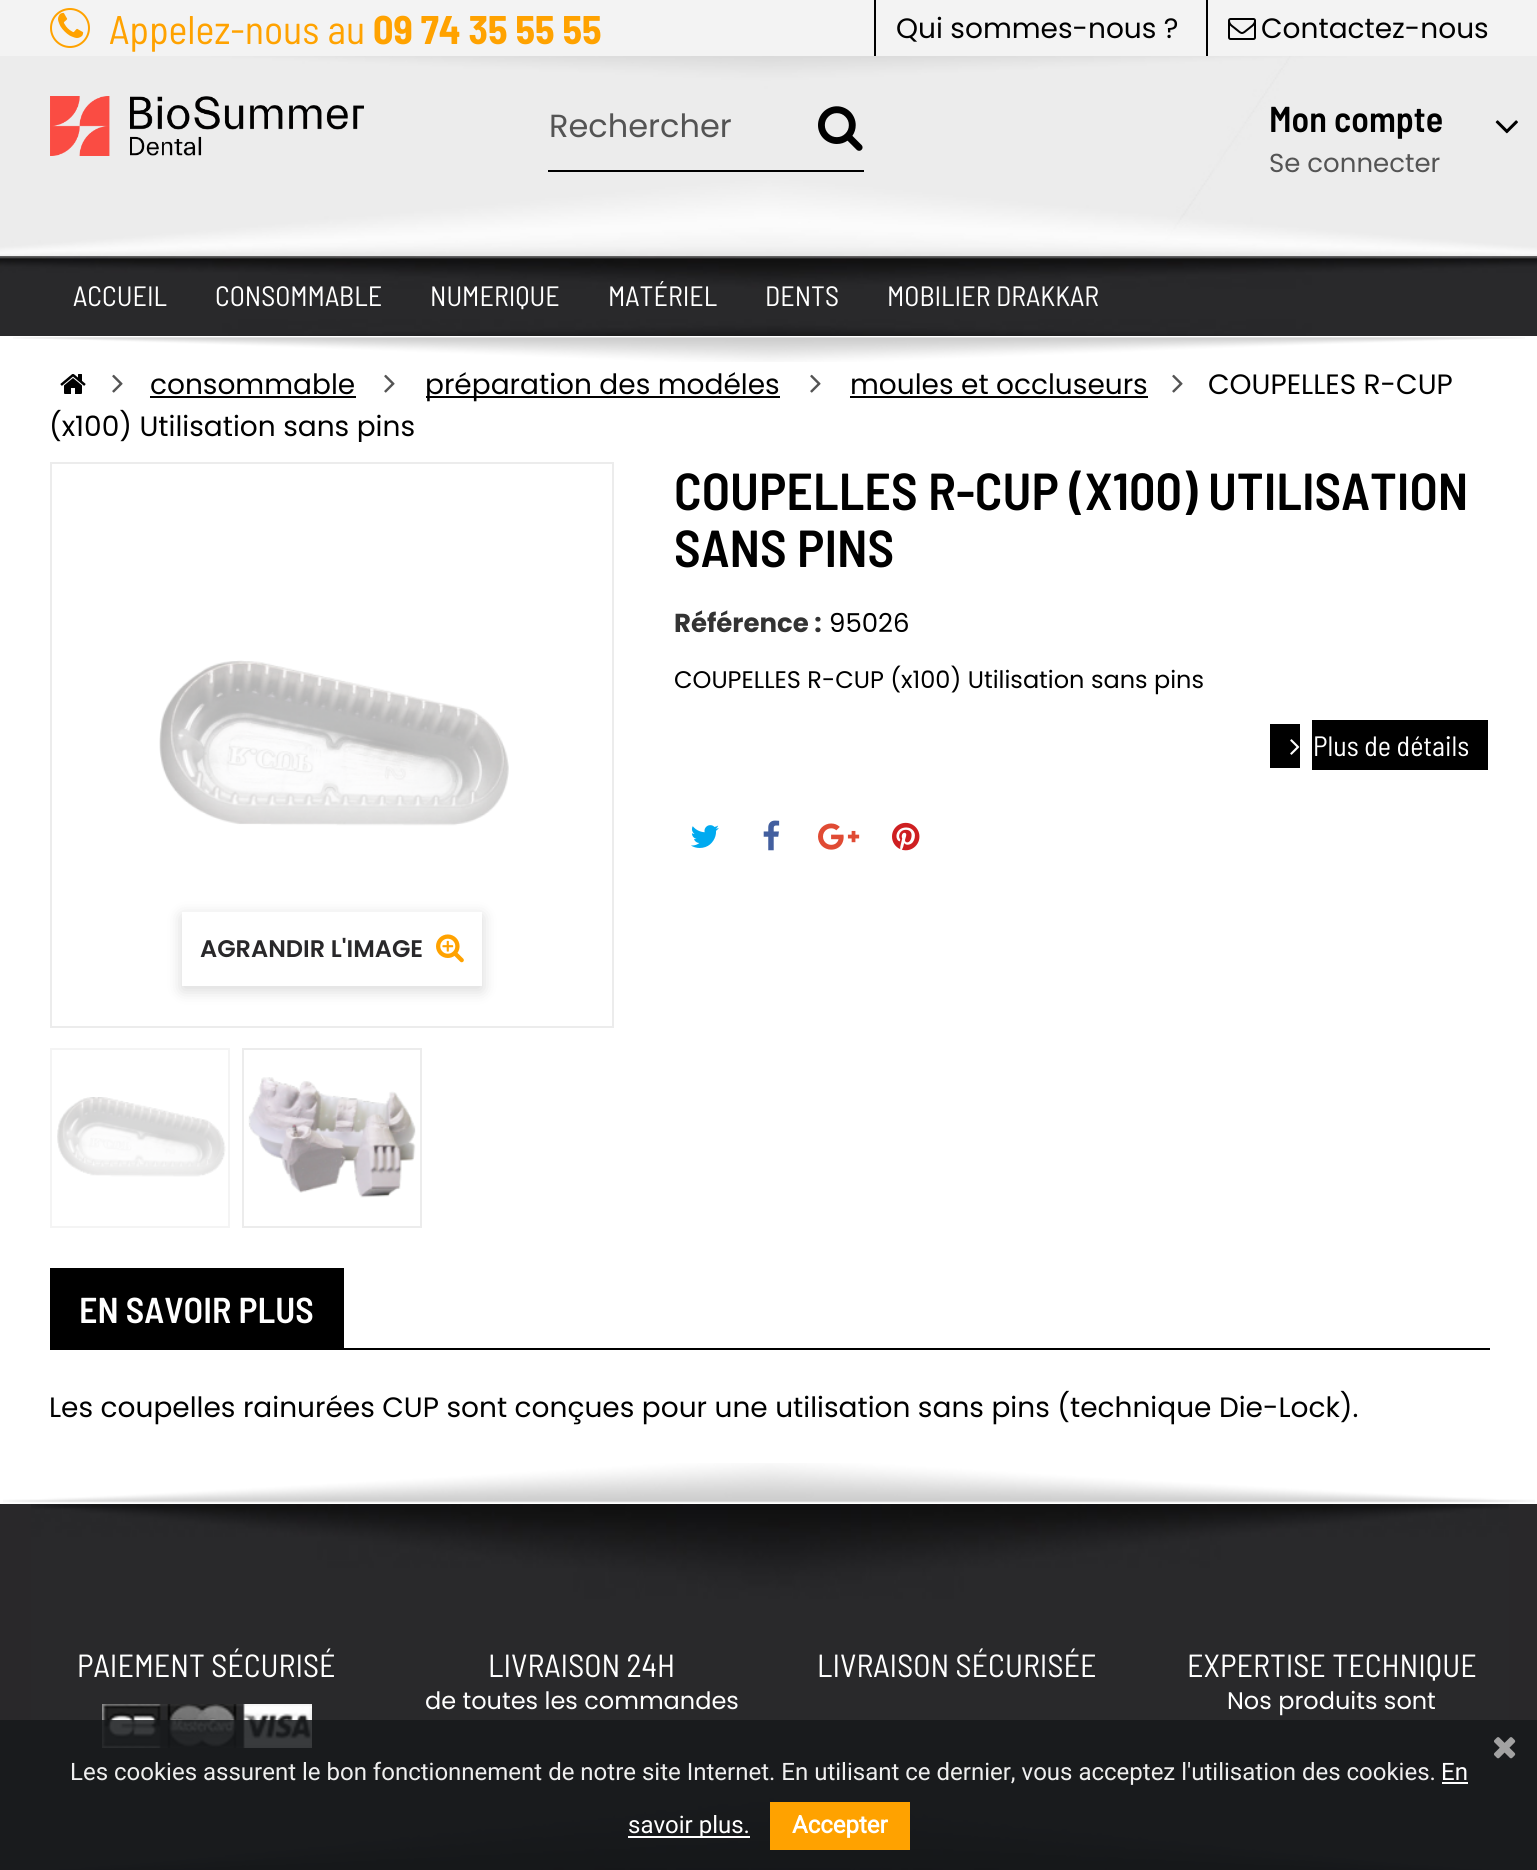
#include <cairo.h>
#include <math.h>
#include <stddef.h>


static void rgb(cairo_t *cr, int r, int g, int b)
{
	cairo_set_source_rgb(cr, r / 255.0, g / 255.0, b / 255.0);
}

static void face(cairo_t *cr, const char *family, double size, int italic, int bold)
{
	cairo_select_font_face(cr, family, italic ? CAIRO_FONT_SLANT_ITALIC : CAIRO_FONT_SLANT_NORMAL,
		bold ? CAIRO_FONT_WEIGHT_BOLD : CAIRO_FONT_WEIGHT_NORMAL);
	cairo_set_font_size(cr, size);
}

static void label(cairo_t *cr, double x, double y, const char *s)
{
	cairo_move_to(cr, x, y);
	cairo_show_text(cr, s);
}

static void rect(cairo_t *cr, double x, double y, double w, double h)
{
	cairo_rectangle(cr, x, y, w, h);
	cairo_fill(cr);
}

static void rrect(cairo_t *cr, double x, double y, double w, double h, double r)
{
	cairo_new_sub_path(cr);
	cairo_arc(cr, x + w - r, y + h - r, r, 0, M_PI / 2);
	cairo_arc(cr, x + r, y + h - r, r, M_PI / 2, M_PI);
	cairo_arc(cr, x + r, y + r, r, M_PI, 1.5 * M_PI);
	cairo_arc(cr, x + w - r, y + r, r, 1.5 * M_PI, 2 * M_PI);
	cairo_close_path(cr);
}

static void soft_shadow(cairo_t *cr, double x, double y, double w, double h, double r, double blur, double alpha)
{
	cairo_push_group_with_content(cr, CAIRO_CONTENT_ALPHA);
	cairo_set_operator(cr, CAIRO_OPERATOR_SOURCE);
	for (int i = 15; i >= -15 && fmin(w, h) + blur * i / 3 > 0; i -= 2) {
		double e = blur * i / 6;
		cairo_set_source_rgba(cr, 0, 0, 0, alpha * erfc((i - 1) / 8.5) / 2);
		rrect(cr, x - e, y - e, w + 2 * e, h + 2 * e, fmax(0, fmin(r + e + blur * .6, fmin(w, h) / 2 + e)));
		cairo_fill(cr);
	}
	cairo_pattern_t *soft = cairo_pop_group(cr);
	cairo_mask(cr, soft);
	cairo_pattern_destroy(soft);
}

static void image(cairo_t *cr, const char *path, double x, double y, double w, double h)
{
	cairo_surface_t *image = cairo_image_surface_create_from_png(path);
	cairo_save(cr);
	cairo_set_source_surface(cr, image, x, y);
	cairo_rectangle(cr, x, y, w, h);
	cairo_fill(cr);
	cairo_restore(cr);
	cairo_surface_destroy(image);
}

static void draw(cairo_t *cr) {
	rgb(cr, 255, 255, 255);
	cairo_paint(cr);
	image(cr, "image0.png", 0, 56, 1537, 200);
	rgb(cr, 243, 243, 243);
	rect(cr, 0, 0, 1537, 56);
	cairo_arc(cr, 70, 28, 19, 0, 2 * M_PI);
	rgb(cr, 255, 162, 0);
	cairo_stroke(cr);
	image(cr, "image1.png", 58, 12, 26, 26);
	face(cr, "Barlow Semi Condensed", 40, 0, 0);
	label(cr, 109, 44, "Appelez-nous au");
	face(cr, "Barlow Semi Condensed", 40, 0, 1);
	label(cr, 373, 44, "09 74 35 55 55");
	rgb(cr, 0, 0, 0);
	rect(cr, 874, 0, 2, 56);
	face(cr, "Poppins", 28, 0, 0);
	label(cr, 896, 38, "Qui sommes-nous ?");
	rect(cr, 1206, 0, 2, 56);
	image(cr, "image2.png", 1228, 18, 28, 22);
	label(cr, 1261, 38, "Contactez-nous");
	image(cr, "image3.png", 50, 96, 314, 60);
	rect(cr, 548, 170, 316, 2);
	face(cr, "Poppins", 32, 0, 0);
	rgb(cr, 84, 84, 84);
	label(cr, 549, 137, "Rechercher");
	image(cr, "image4.png", 818, 106, 45, 45);
	face(cr, "Barlow Semi Condensed SemiBold", 36, 0, 0);
	rgb(cr, 0, 0, 0);
	label(cr, 1269, 132, "Mon compte");
	image(cr, "image5.png", 1495, 120, 23, 14);
	face(cr, "Poppins", 26, 0, 0);
	rgb(cr, 84, 84, 84);
	label(cr, 1269, 172, "Se connecter");
	image(cr, "image6.png", 0, 256, 1537, 80);
	face(cr, "Barlow Semi Condensed", 28, 0, 0);
	rgb(cr, 255, 255, 255);
	label(cr, 73, 306, "ACCUEIL");
	label(cr, 215, 306, "CONSOMMABLE");
	label(cr, 430, 306, "NUMERIQUE");
	label(cr, 608, 306, "MATÉRIEL");
	label(cr, 765, 306, "DENTS");
	label(cr, 887, 306, "MOBILIER DRAKKAR");
	image(cr, "image7.png", 13, 337, 1512, 25);
	face(cr, "Poppins", 28, 0, 0);
	rgb(cr, 0, 0, 0);
	label(cr, 150, 394, "consommable");
	rect(cr, 150, 396, 206, 2);
	image(cr, "image8.png", 384, 374, 11, 19);
	rect(cr, 426, 396, 354, 2);
	label(cr, 425, 394, "préparation des modéles");
	image(cr, "image8.png", 810, 374, 11, 19);
	label(cr, 850, 394, "moules et occluseurs");
	rect(cr, 850, 396, 298, 2);
	image(cr, "image8.png", 1172, 374, 11, 19);
	label(cr, 1208, 394, "COUPELLES R-CUP");
	cairo_save(cr);
	cairo_rectangle(cr, 50, 366, 1440, 76);
	cairo_clip(cr);
	label(cr, 49, 436, "(x100) Utilisation sans pins");
	cairo_restore(cr);
	image(cr, "image9.png", 60, 374, 26, 20);
	image(cr, "image8.png", 112, 374, 11, 19);
	face(cr, "Barlow Semi Condensed SemiBold", 52, 0, 0);
	label(cr, 674, 510, "COUPELLES R-CUP (X100) UTILISATION");
	label(cr, 674, 567, "SANS PINS");
	face(cr, "Poppins", 26, 0, 1);
	rgb(cr, 51, 51, 51);
	label(cr, 674, 632, "Référence :");
	face(cr, "Poppins", 26, 0, 0);
	rgb(cr, 0, 0, 0);
	label(cr, 829, 632, "95026");
	face(cr, "Poppins", 24, 0, 0);
	label(cr, 674, 688, "COUPELLES R-CUP (x100) Utilisation sans pins");
	rect(cr, 1270, 724, 30, 44);
	rect(cr, 1312, 720, 176, 50);
	image(cr, "image10.png", 1290, 739, 10, 16);
	face(cr, "Barlow Semi Condensed", 28, 0, 0);
	rgb(cr, 255, 255, 255);
	label(cr, 1313, 756, "Plus de détails");
	image(cr, "image11.png", 691, 825, 28, 23);
	image(cr, "image12.png", 763, 820, 17, 31);
	image(cr, "image13.png", 818, 823, 42, 27);
	image(cr, "image14.png", 892, 822, 28, 29);
	cairo_rectangle(cr, 51, 463, 562, 564);
	rgb(cr, 236, 236, 236);
	cairo_stroke(cr);
	image(cr, "image15.png", 159, 660, 350, 166);
	cairo_save(cr);
	cairo_set_fill_rule(cr, CAIRO_FILL_RULE_EVEN_ODD);
	cairo_new_path(cr);
	cairo_move_to(cr, 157, 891);
	cairo_line_to(cr, 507, 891);
	cairo_line_to(cr, 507, 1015);
	cairo_line_to(cr, 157, 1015);
	cairo_close_path(cr);
	cairo_move_to(cr, 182, 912);
	cairo_line_to(cr, 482, 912);
	cairo_line_to(cr, 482, 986);
	cairo_line_to(cr, 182, 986);
	cairo_close_path(cr);
	cairo_clip(cr);
	rgb(cr, 0, 0, 0);
	soft_shadow(cr, 182, 916, 300, 74, 0, 8, 0.16);
	cairo_restore(cr);
	face(cr, "Poppins SemiBold", 24, 0, 0);
	rgb(cr, 41, 40, 42);
	label(cr, 200, 957, "AGRANDIR L'IMAGE");
	image(cr, "image16.png", 436, 934, 28, 29);
	cairo_rectangle(cr, 51, 1049, 178, 178);
	rgb(cr, 244, 244, 244);
	cairo_stroke(cr);
	image(cr, "image17.png", 57, 1097, 169, 80);
	cairo_rectangle(cr, 243, 1049, 178, 178);
	rgb(cr, 236, 236, 236);
	cairo_stroke(cr);
	image(cr, "image18.png", 248, 1077, 168, 121);
	rgb(cr, 0, 0, 0);
	rect(cr, 50, 1348, 1440, 2);
	rect(cr, 50, 1268, 294, 80);
	face(cr, "Barlow Semi Condensed SemiBold", 36, 0, 0);
	rgb(cr, 255, 255, 255);
	label(cr, 79, 1323, "EN SAVOIR PLUS");
	face(cr, "Poppins", 28, 0, 0);
	rgb(cr, 0, 0, 0);
	label(cr, 49, 1417, "Les coupelles rainurées CUP sont conçues pour une utilisation sans pins (technique Die-Lock).");
	rgb(cr, 41, 40, 42);
	rect(cr, 0, 1504, 1537, 366);
	image(cr, "image19.png", 3, 1463, 1532, 40);
	image(cr, "image20.png", 31, 1504, 1478, 366);
	face(cr, "Barlow Semi Condensed", 32, 0, 0);
	rgb(cr, 255, 255, 255);
	label(cr, 77, 1677, "PAIEMENT SÉCURISÉ");
	image(cr, "image21.png", 102, 1704, 210, 44);
	label(cr, 488, 1677, "LIVRAISON 24H");
	face(cr, "Poppins", 24, 0, 0);
	label(cr, 425, 1709, "de toutes les commandes");
	face(cr, "Barlow Semi Condensed", 32, 0, 0);
	label(cr, 817, 1677, "LIVRAISON SÉCURISÉE");
	label(cr, 1187, 1677, "EXPERTISE TECHNIQUE");
	face(cr, "Poppins", 24, 0, 0);
	label(cr, 1227, 1709, "Nos produits sont");
	cairo_set_source_rgba(cr, 0.09, 0.098, 0.11, 0.85);
	rect(cr, 0, 1720, 1537, 150);
	image(cr, "image22.png", 1494, 1737, 22, 22);
	face(cr, "Roboto", 24, 0, 0);
	rgb(cr, 239, 239, 239);
	label(cr, 70, 1780, "Les cookies assurent le bon fonctionnement de notre site Internet. En utilisant ce dernier, vous acceptez l'utilisation des cookies.");
	rgb(cr, 255, 255, 255);
	label(cr, 1441, 1780, "En");
	rect(cr, 1442, 1782, 26, 2);
	rect(cr, 628, 1836, 122, 2);
	label(cr, 628, 1833, "savoir plus.");
	rgb(cr, 255, 162, 0);
	rect(cr, 770, 1802, 140, 48);
	face(cr, "Roboto", 24, 0, 1);
	rgb(cr, 255, 255, 255);
	label(cr, 792, 1833, "Accepter");
}

int main(void) {
	cairo_surface_t *surface = cairo_image_surface_create(CAIRO_FORMAT_RGB24, 1537, 1870);
	cairo_t *cr = cairo_create(surface);
	cairo_font_options_t *options = cairo_font_options_create();
	cairo_font_options_set_hint_metrics(options, CAIRO_HINT_METRICS_OFF);
	cairo_font_options_set_hint_style(options, CAIRO_HINT_STYLE_NONE);
	cairo_set_font_options(cr, options);
	cairo_set_miter_limit(cr, 4);
	draw(cr);
	cairo_surface_write_to_png(surface, "render.png");
	cairo_font_options_destroy(options);
	cairo_destroy(cr);
	cairo_surface_destroy(surface);
	return 0;
}
